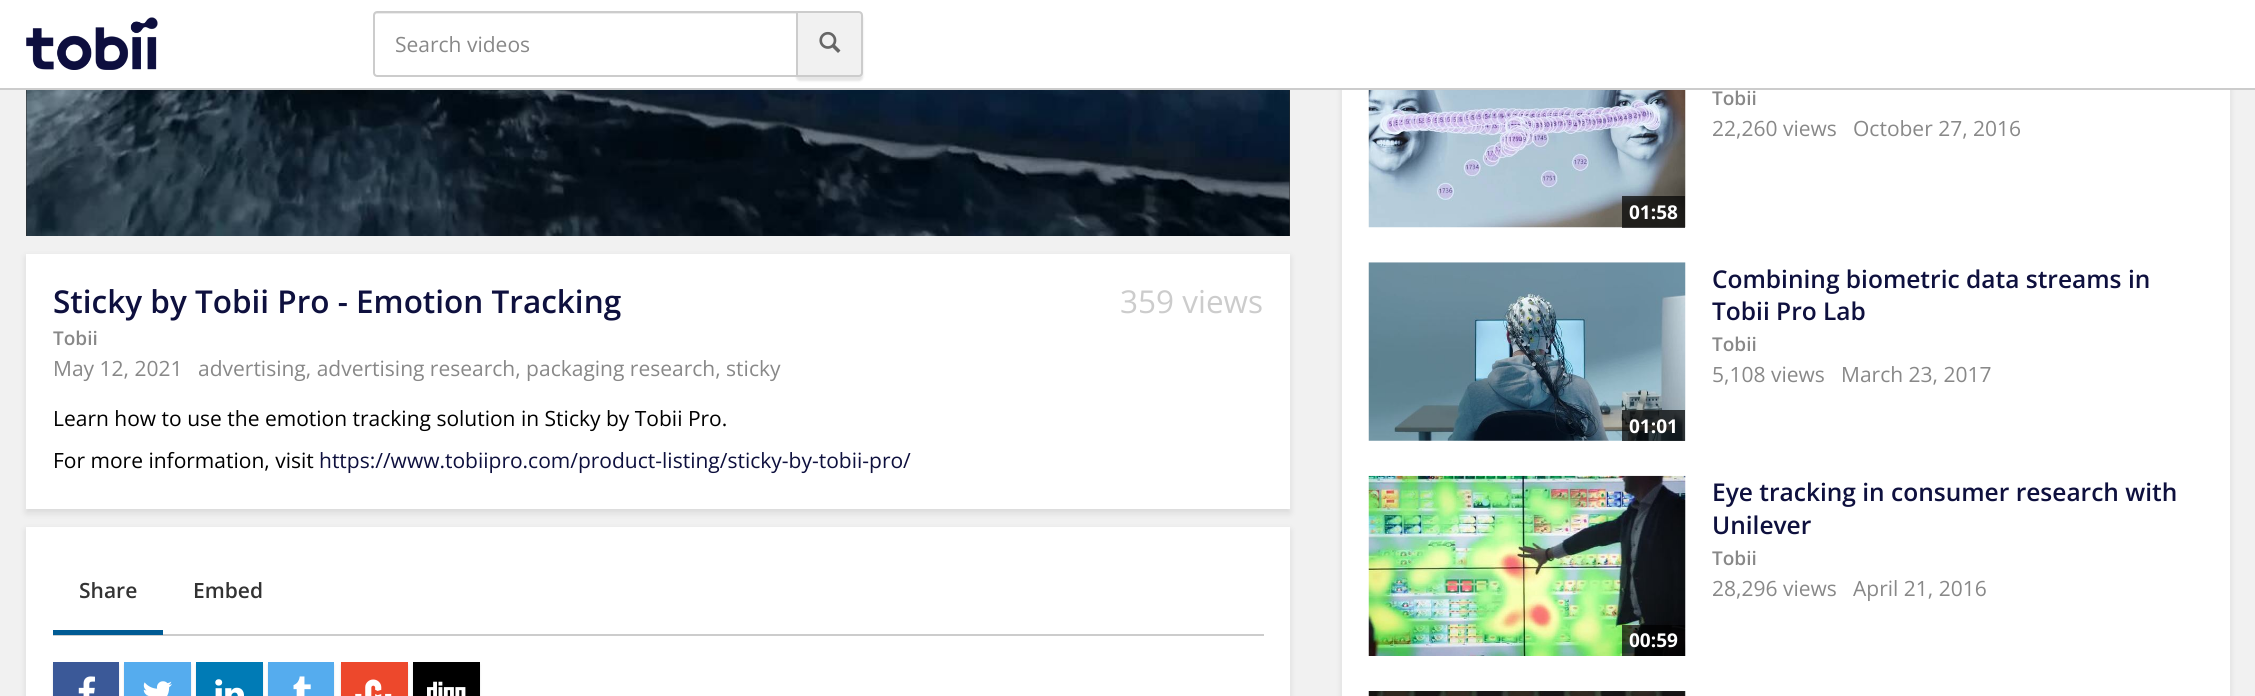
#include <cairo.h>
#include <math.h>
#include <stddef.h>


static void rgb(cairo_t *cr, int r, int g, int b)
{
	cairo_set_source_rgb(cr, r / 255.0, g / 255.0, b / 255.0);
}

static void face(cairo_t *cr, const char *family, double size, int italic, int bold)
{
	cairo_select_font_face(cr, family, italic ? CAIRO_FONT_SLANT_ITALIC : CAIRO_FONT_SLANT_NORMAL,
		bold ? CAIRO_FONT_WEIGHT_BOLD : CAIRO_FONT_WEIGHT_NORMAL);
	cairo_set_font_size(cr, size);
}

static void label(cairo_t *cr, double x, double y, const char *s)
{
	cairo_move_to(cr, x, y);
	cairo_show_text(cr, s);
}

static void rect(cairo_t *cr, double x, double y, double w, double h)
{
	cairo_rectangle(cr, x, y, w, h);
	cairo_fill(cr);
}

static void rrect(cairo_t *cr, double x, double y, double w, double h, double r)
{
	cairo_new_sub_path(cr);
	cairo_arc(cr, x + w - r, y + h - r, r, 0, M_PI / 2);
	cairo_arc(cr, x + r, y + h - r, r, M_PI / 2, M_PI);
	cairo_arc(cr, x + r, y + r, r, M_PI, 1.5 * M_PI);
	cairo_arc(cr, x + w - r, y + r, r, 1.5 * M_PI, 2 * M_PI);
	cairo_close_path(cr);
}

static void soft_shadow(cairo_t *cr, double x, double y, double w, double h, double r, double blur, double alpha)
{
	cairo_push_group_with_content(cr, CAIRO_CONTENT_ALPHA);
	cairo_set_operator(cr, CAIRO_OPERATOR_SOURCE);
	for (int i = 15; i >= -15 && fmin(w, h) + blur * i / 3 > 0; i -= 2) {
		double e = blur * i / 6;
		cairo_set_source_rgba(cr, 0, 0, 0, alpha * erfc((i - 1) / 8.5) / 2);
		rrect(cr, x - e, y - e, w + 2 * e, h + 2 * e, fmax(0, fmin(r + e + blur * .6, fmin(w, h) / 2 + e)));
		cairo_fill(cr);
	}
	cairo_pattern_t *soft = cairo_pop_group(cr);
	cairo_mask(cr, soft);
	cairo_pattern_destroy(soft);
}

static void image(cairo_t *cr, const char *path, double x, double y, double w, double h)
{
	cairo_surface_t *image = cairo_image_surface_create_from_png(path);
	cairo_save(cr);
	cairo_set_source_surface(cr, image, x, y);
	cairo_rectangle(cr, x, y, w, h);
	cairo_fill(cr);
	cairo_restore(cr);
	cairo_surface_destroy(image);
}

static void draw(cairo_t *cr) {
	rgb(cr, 241, 241, 241);
	cairo_paint(cr);
	rgb(cr, 0, 0, 0);
	soft_shadow(cr, 1342, -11, 888, 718, 0, 3.5, 0.1);
	rgb(cr, 255, 255, 255);
	rect(cr, 0, 0, 2255, 88);
	rgb(cr, 204, 204, 204);
	rect(cr, 0, 88, 2255, 2);
	image(cr, "image0.png", 26, 17, 132, 53);
	rgb(cr, 0, 0, 0);
	soft_shadow(cr, 796, 14, 67, 67, 4, 1, 0.1);
	rgb(cr, 241, 241, 241);
	cairo_new_path(cr);
	cairo_move_to(cr, 797, 12);
	cairo_line_to(cr, 859, 12);
	cairo_curve_to(cr, 860.5, 12, 862, 13.5, 862, 15);
	cairo_line_to(cr, 862, 73);
	cairo_curve_to(cr, 862, 74.5, 860.5, 76, 859, 76);
	cairo_line_to(cr, 797, 76);
	cairo_close_path(cr);
	cairo_fill_preserve(cr);
	rgb(cr, 204, 204, 204);
	cairo_stroke(cr);
	rgb(cr, 255, 255, 255);
	cairo_new_path(cr);
	cairo_move_to(cr, 377, 11);
	cairo_line_to(cr, 798, 11);
	cairo_line_to(cr, 798, 77);
	cairo_line_to(cr, 377, 77);
	cairo_curve_to(cr, 375, 77, 373, 75, 373, 73);
	cairo_line_to(cr, 373, 15);
	cairo_curve_to(cr, 373, 13, 375, 11, 377, 11);
	cairo_close_path(cr);
	cairo_fill(cr);
	rgb(cr, 236, 236, 236);
	cairo_new_path(cr);
	cairo_move_to(cr, 376, 14);
	cairo_line_to(cr, 796, 14);
	cairo_line_to(cr, 796, 12);
	cairo_line_to(cr, 377, 12);
	cairo_curve_to(cr, 375, 12, 375, 14, 375, 15);
	cairo_close_path(cr);
	cairo_fill(cr);
	cairo_new_path(cr);
	cairo_move_to(cr, 377, 12);
	cairo_line_to(cr, 797, 12);
	cairo_line_to(cr, 797, 76);
	cairo_line_to(cr, 377, 76);
	cairo_curve_to(cr, 375.5, 76, 374, 74.5, 374, 73);
	cairo_line_to(cr, 374, 15);
	cairo_curve_to(cr, 374, 13.5, 375.5, 12, 377, 12);
	cairo_close_path(cr);
	rgb(cr, 204, 204, 204);
	cairo_stroke(cr);
	face(cr, "Open Sans", 21, 0, 0);
	rgb(cr, 136, 136, 136);
	label(cr, 395, 52, "Search videos");
	image(cr, "image1.png", 819, 31, 22, 22);
	image(cr, "image2.png", 26, 90, 1264, 146);
	rgb(cr, 0, 0, 0);
	soft_shadow(cr, 26, 257, 1264, 256, 0, 3.5, 0.1);
	rgb(cr, 255, 255, 255);
	rect(cr, 26, 254, 1264, 255);
	face(cr, "Open Sans SemiBold", 31.5, 0, 0);
	rgb(cr, 14, 16, 62);
	label(cr, 53, 313, "Sticky by Tobii Pro - Emotion Tracking");
	face(cr, "Open Sans SemiBold", 19, 0, 0);
	rgb(cr, 136, 136, 136);
	label(cr, 53, 345, "Tobii");
	face(cr, "Open Sans", 31.5, 0, 0);
	rgb(cr, 204, 204, 204);
	label(cr, 1120, 313, "359 views");
	face(cr, "Open Sans", 21, 0, 0);
	rgb(cr, 136, 136, 136);
	label(cr, 53, 376, "May 12, 2021");
	label(cr, 198, 376, "advertising, advertising research, packaging research, sticky");
	rgb(cr, 0, 0, 0);
	label(cr, 53, 426, "Learn how to use the emotion tracking solution in Sticky by Tobii Pro.");
	label(cr, 53, 468, "For more information, visit");
	rgb(cr, 14, 16, 62);
	label(cr, 319, 468, "https://www.tobiipro.com/product-listing/sticky-by-tobii-pro/");
	rgb(cr, 0, 0, 0);
	soft_shadow(cr, 26, 530, 1264, 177, 0, 3.5, 0.1);
	rgb(cr, 255, 255, 255);
	rect(cr, 26, 527, 1264, 169);
	rgb(cr, 204, 204, 204);
	rect(cr, 53, 634, 1211, 2);
	rgb(cr, 255, 255, 255);
	cairo_new_path(cr);
	cairo_move_to(cr, 57, 553);
	cairo_line_to(cr, 159, 553);
	cairo_curve_to(cr, 161, 553, 163, 555, 163, 557);
	cairo_line_to(cr, 163, 635);
	cairo_line_to(cr, 53, 635);
	cairo_line_to(cr, 53, 557);
	cairo_curve_to(cr, 53, 555, 55, 553, 57, 553);
	cairo_close_path(cr);
	cairo_fill(cr);
	rgb(cr, 0, 91, 148);
	rect(cr, 53, 630, 110, 5);
	face(cr, "Open Sans SemiBold", 21, 0, 0);
	rgb(cr, 51, 51, 51);
	label(cr, 79, 598, "Share");
	label(cr, 193, 598, "Embed");
	rgb(cr, 0, 0, 0);
	soft_shadow(cr, 53, 665, 66, 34, 0, 1, 0.1);
	rgb(cr, 59, 89, 152);
	rect(cr, 53, 662, 66, 34);
	image(cr, "image3.png", 78, 676, 17, 20);
	rgb(cr, 0, 0, 0);
	soft_shadow(cr, 124, 665, 67, 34, 0, 1, 0.1);
	rgb(cr, 85, 172, 238);
	rect(cr, 124, 662, 67, 34);
	image(cr, "image4.png", 143, 681, 29, 15);
	rgb(cr, 0, 0, 0);
	soft_shadow(cr, 196, 665, 67, 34, 0, 1, 0.1);
	rgb(cr, 0, 123, 182);
	rect(cr, 196, 662, 67, 34);
	image(cr, "image5.png", 215, 679, 29, 17);
	rgb(cr, 0, 0, 0);
	soft_shadow(cr, 268, 665, 66, 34, 0, 1, 0.1);
	rgb(cr, 85, 172, 238);
	rect(cr, 268, 662, 66, 34);
	image(cr, "image6.png", 293, 676, 18, 20);
	rgb(cr, 0, 0, 0);
	soft_shadow(cr, 341, 665, 67, 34, 0, 1, 0.1);
	rgb(cr, 237, 72, 44);
	rect(cr, 341, 662, 67, 34);
	image(cr, "image7.png", 355, 679, 37, 17);
	rgb(cr, 0, 0, 0);
	soft_shadow(cr, 413, 665, 67, 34, 0, 1, 0.1);
	rgb(cr, 0, 0, 0);
	rect(cr, 413, 662, 67, 34);
	image(cr, "image8.png", 427, 681, 39, 15);
	rgb(cr, 255, 255, 255);
	rect(cr, 1342, 90, 888, 606);
	face(cr, "Open Sans SemiBold", 19, 0, 0);
	rgb(cr, 136, 136, 136);
	label(cr, 1712, 105, "Tobii");
	face(cr, "Open Sans", 21, 0, 0);
	label(cr, 1712, 136, "22,260 views");
	label(cr, 1853, 136, "October 27, 2016");
	image(cr, "image9.png", 1368, 90, 318, 138);
	cairo_set_source_rgba(cr, 0, 0, 0, 0.7);
	rect(cr, 1622, 196, 63, 32);
	face(cr, "Open Sans", 19, 0, 1);
	rgb(cr, 255, 255, 255);
	label(cr, 1629, 219, "01:58");
	face(cr, "Open Sans SemiBold", 24.5, 0, 0);
	rgb(cr, 14, 16, 62);
	label(cr, 1712, 288, "Combining biometric data streams in");
	label(cr, 1712, 320, "Tobii Pro Lab");
	face(cr, "Open Sans SemiBold", 19, 0, 0);
	rgb(cr, 136, 136, 136);
	label(cr, 1712, 351, "Tobii");
	face(cr, "Open Sans", 21, 0, 0);
	label(cr, 1712, 382, "5,108 views");
	label(cr, 1841, 382, "March 23, 2017");
	image(cr, "image10.png", 1368, 262, 318, 179);
	cairo_set_source_rgba(cr, 0, 0, 0, 0.7);
	rect(cr, 1622, 410, 63, 31);
	face(cr, "Open Sans", 19, 0, 1);
	rgb(cr, 255, 255, 255);
	label(cr, 1629, 433, "01:01");
	face(cr, "Open Sans SemiBold", 24.5, 0, 0);
	rgb(cr, 14, 16, 62);
	label(cr, 1712, 501, "Eye tracking in consumer research with");
	label(cr, 1712, 534, "Unilever");
	face(cr, "Open Sans SemiBold", 19, 0, 0);
	rgb(cr, 136, 136, 136);
	label(cr, 1712, 565, "Tobii");
	face(cr, "Open Sans", 21, 0, 0);
	label(cr, 1712, 596, "28,296 views");
	label(cr, 1853, 596, "April 21, 2016");
	image(cr, "image11.png", 1368, 475, 318, 181);
	cairo_set_source_rgba(cr, 0, 0, 0, 0.7);
	rect(cr, 1622, 625, 63, 31);
	face(cr, "Open Sans", 19, 0, 1);
	rgb(cr, 255, 255, 255);
	label(cr, 1629, 647, "00:59");
	image(cr, "image12.png", 1368, 691, 318, 5);
}

int main(void) {
	cairo_surface_t *surface = cairo_image_surface_create(CAIRO_FORMAT_RGB24, 2255, 696);
	cairo_t *cr = cairo_create(surface);
	cairo_font_options_t *options = cairo_font_options_create();
	cairo_font_options_set_hint_metrics(options, CAIRO_HINT_METRICS_OFF);
	cairo_font_options_set_hint_style(options, CAIRO_HINT_STYLE_NONE);
	cairo_set_font_options(cr, options);
	cairo_set_miter_limit(cr, 4);
	draw(cr);
	cairo_surface_write_to_png(surface, "render.png");
	cairo_font_options_destroy(options);
	cairo_destroy(cr);
	cairo_surface_destroy(surface);
	return 0;
}
